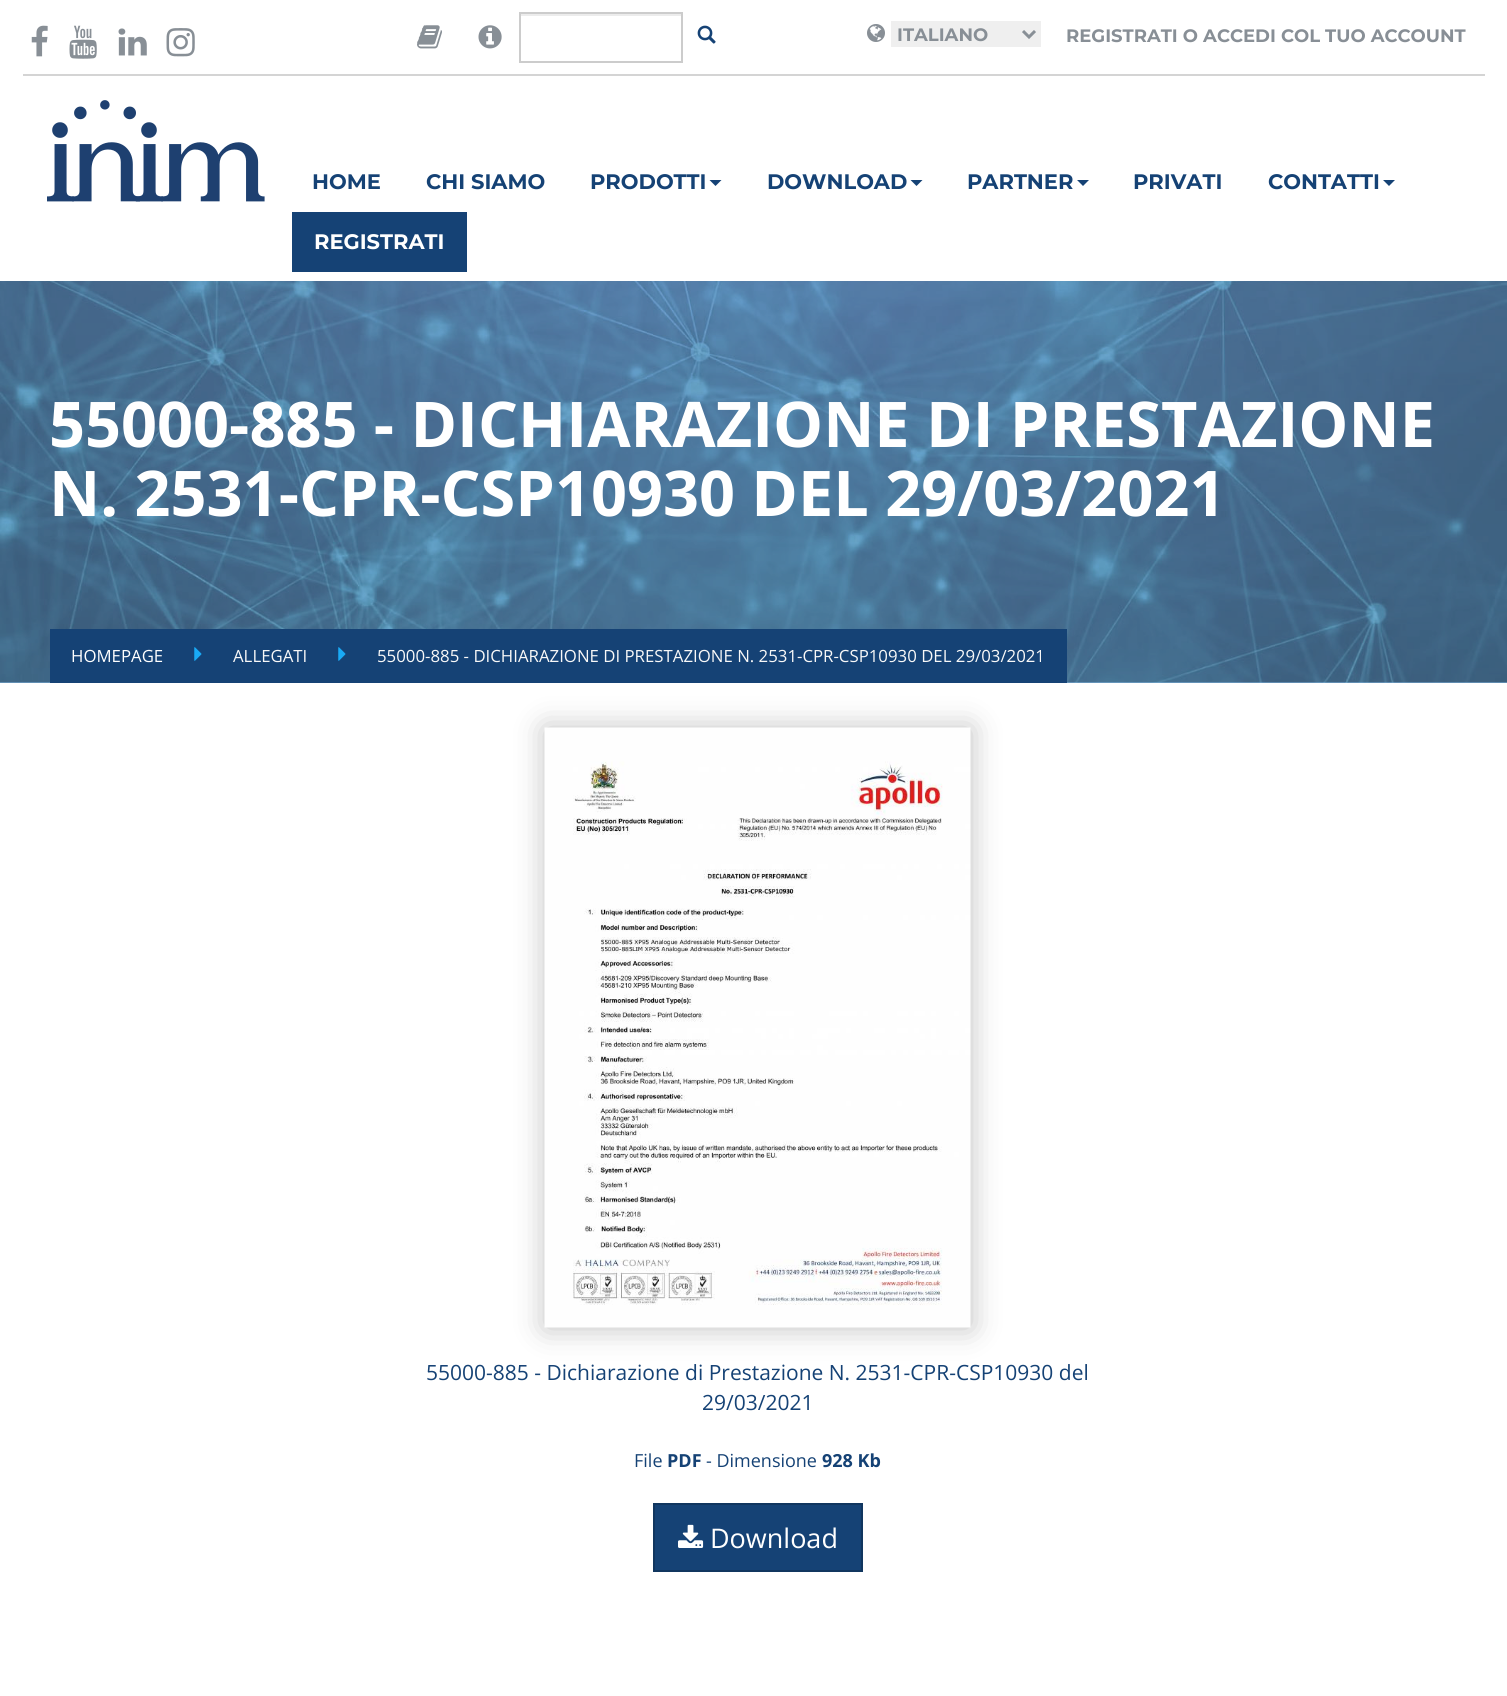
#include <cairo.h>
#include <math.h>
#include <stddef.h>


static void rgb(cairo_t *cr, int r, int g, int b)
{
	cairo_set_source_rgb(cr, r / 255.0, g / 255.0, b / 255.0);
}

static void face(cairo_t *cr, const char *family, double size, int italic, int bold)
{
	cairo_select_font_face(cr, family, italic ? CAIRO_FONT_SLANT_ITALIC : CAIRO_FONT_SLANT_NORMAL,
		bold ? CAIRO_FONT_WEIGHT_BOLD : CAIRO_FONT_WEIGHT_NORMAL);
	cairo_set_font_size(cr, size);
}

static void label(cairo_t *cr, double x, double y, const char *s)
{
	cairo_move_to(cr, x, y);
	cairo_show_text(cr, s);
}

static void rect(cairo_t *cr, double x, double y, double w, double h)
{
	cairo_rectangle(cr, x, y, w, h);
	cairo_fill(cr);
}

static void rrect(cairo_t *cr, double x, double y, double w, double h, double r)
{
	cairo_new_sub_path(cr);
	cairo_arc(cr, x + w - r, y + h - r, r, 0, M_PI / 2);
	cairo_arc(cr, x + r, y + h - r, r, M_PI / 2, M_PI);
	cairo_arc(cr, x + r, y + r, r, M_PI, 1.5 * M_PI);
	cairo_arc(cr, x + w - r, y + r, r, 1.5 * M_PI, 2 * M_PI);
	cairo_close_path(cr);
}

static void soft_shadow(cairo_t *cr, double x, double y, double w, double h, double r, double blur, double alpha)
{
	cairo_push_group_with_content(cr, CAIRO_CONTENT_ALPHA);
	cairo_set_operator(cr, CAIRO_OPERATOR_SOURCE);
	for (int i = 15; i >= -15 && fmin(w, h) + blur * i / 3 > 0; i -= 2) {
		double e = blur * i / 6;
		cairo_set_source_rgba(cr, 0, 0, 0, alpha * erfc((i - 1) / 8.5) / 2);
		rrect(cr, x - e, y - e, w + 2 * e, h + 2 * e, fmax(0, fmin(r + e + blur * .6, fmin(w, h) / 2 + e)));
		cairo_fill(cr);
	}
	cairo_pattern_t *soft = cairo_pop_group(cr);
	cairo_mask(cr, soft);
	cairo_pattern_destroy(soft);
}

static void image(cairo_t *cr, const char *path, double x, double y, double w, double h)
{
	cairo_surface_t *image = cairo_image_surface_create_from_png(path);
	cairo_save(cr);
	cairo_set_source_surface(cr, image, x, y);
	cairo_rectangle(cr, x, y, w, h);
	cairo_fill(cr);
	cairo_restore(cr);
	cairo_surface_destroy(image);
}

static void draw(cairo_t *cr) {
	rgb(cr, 255, 255, 255);
	cairo_paint(cr);
	rgb(cr, 212, 212, 212);
	rect(cr, 23, 74, 1462, 2);
	image(cr, "image0.png", 31, 25, 17, 32);
	image(cr, "image1.png", 69, 25, 28, 34);
	image(cr, "image2.png", 118, 28, 29, 28);
	image(cr, "image3.png", 166, 28, 29, 29);
	image(cr, "image4.png", 417, 25, 25, 24);
	image(cr, "image5.png", 478, 25, 24, 24);
	rgb(cr, 236, 236, 236);
	rect(cr, 521, 14, 160, 2);
	cairo_rectangle(cr, 520, 13, 162, 49);
	rgb(cr, 204, 204, 204);
	cairo_stroke(cr);
	image(cr, "image6.png", 697, 25, 19, 19);
	image(cr, "image7.png", 867, 24, 18, 18);
	rgb(cr, 239, 239, 239);
	rect(cr, 891, 21, 150, 26);
	cairo_new_path(cr);
	cairo_move_to(cr, 1023, 31);
	cairo_line_to(cr, 1029, 37);
	cairo_line_to(cr, 1035, 31);
	rgb(cr, 136, 143, 150);
	cairo_set_line_width(cr, 3);
	cairo_stroke(cr);
	face(cr, "Montserrat", 18, 0, 1);
	label(cr, 897, 41, "ITALIANO");
	label(cr, 1066, 42, "REGISTRATI O ACCEDI COL TUO ACCOUNT");
	image(cr, "image8.png", 47, 100, 218, 102);
	face(cr, "Montserrat", 21, 0, 1);
	rgb(cr, 21, 66, 117);
	label(cr, 312, 189, "HOME");
	label(cr, 426, 189, "CHI SIAMO");
	label(cr, 590, 189, "PRODOTTI");
	cairo_new_path(cr);
	cairo_move_to(cr, 709.5, 180);
	cairo_line_to(cr, 721.5, 180);
	cairo_line_to(cr, 715.5, 186);
	cairo_close_path(cr);
	cairo_fill(cr);
	label(cr, 767, 189, "DOWNLOAD");
	cairo_new_path(cr);
	cairo_move_to(cr, 910.5, 180);
	cairo_line_to(cr, 922.5, 180);
	cairo_line_to(cr, 916.5, 186);
	cairo_close_path(cr);
	cairo_fill(cr);
	label(cr, 967, 189, "PARTNER");
	cairo_new_path(cr);
	cairo_move_to(cr, 1077, 180);
	cairo_line_to(cr, 1089, 180);
	cairo_line_to(cr, 1083, 186);
	cairo_close_path(cr);
	cairo_fill(cr);
	label(cr, 1133, 189, "PRIVATI");
	label(cr, 1268, 189, "CONTATTI");
	cairo_new_path(cr);
	cairo_move_to(cr, 1383, 180);
	cairo_line_to(cr, 1395, 180);
	cairo_line_to(cr, 1389, 186);
	cairo_close_path(cr);
	cairo_fill(cr);
	rect(cr, 292, 212, 175, 60);
	rgb(cr, 255, 255, 255);
	label(cr, 314, 249, "REGISTRATI");
	rgb(cr, 133, 182, 224);
	rect(cr, 0, 682, 1507, 1);
	image(cr, "image9.png", 0, 281, 1507, 402);
	face(cr, "Open Sans", 63, 0, 1);
	rgb(cr, 255, 255, 255);
	label(cr, 49, 447, "55000-885 - DICHIARAZIONE DI PRESTAZIONE");
	label(cr, 49, 516, "N. 2531-CPR-CSP10930 DEL 29/03/2021");
	rgb(cr, 21, 66, 117);
	rect(cr, 50, 629, 1017, 54);
	face(cr, "Open Sans", 16.8, 0, 0);
	rgb(cr, 255, 255, 255);
	label(cr, 71, 662, "HOMEPAGE");
	image(cr, "image10.png", 194, 647, 8, 14);
	rgb(cr, 248, 248, 248);
	label(cr, 233, 662, "ALLEGATI");
	image(cr, "image10.png", 338, 647, 8, 14);
	label(cr, 377, 662, "55000-885 - DICHIARAZIONE DI PRESTAZIONE N. 2531-CPR-CSP10930 DEL 29/03/2021");
	rgb(cr, 0, 0, 0);
	soft_shadow(cr, 545, 728, 426, 600, 0, 15, 0.25);
	image(cr, "image11.png", 544, 727, 427, 601);
	face(cr, "Open Sans", 21, 0, 0);
	rgb(cr, 21, 66, 117);
	label(cr, 426, 1380, "55000-885 - Dichiarazione di Prestazione N. 2531-CPR-CSP10930 del");
	label(cr, 702, 1410, "29/03/2021");
	face(cr, "Open Sans", 18, 0, 0);
	label(cr, 634, 1467, "File");
	face(cr, "Open Sans", 18, 0, 1);
	label(cr, 667, 1467, "PDF");
	face(cr, "Open Sans", 18, 0, 0);
	label(cr, 706, 1467, "- Dimensione");
	face(cr, "Open Sans", 18, 0, 1);
	label(cr, 822, 1467, "928 Kb");
	cairo_rectangle(cr, 654, 1504, 208, 67);
	cairo_fill_preserve(cr);
	rgb(cr, 17, 54, 95);
	cairo_set_line_width(cr, 2);
	cairo_stroke(cr);
	image(cr, "image12.png", 678, 1524, 26, 24);
	face(cr, "Open Sans", 27, 0, 0);
	rgb(cr, 255, 255, 255);
	label(cr, 710, 1548, "Download");
}

int main(void) {
	cairo_surface_t *surface = cairo_image_surface_create(CAIRO_FORMAT_RGB24, 1507, 1696);
	cairo_t *cr = cairo_create(surface);
	cairo_font_options_t *options = cairo_font_options_create();
	cairo_font_options_set_hint_metrics(options, CAIRO_HINT_METRICS_OFF);
	cairo_font_options_set_hint_style(options, CAIRO_HINT_STYLE_NONE);
	cairo_set_font_options(cr, options);
	cairo_set_miter_limit(cr, 4);
	draw(cr);
	cairo_surface_write_to_png(surface, "render.png");
	cairo_font_options_destroy(options);
	cairo_destroy(cr);
	cairo_surface_destroy(surface);
	return 0;
}
